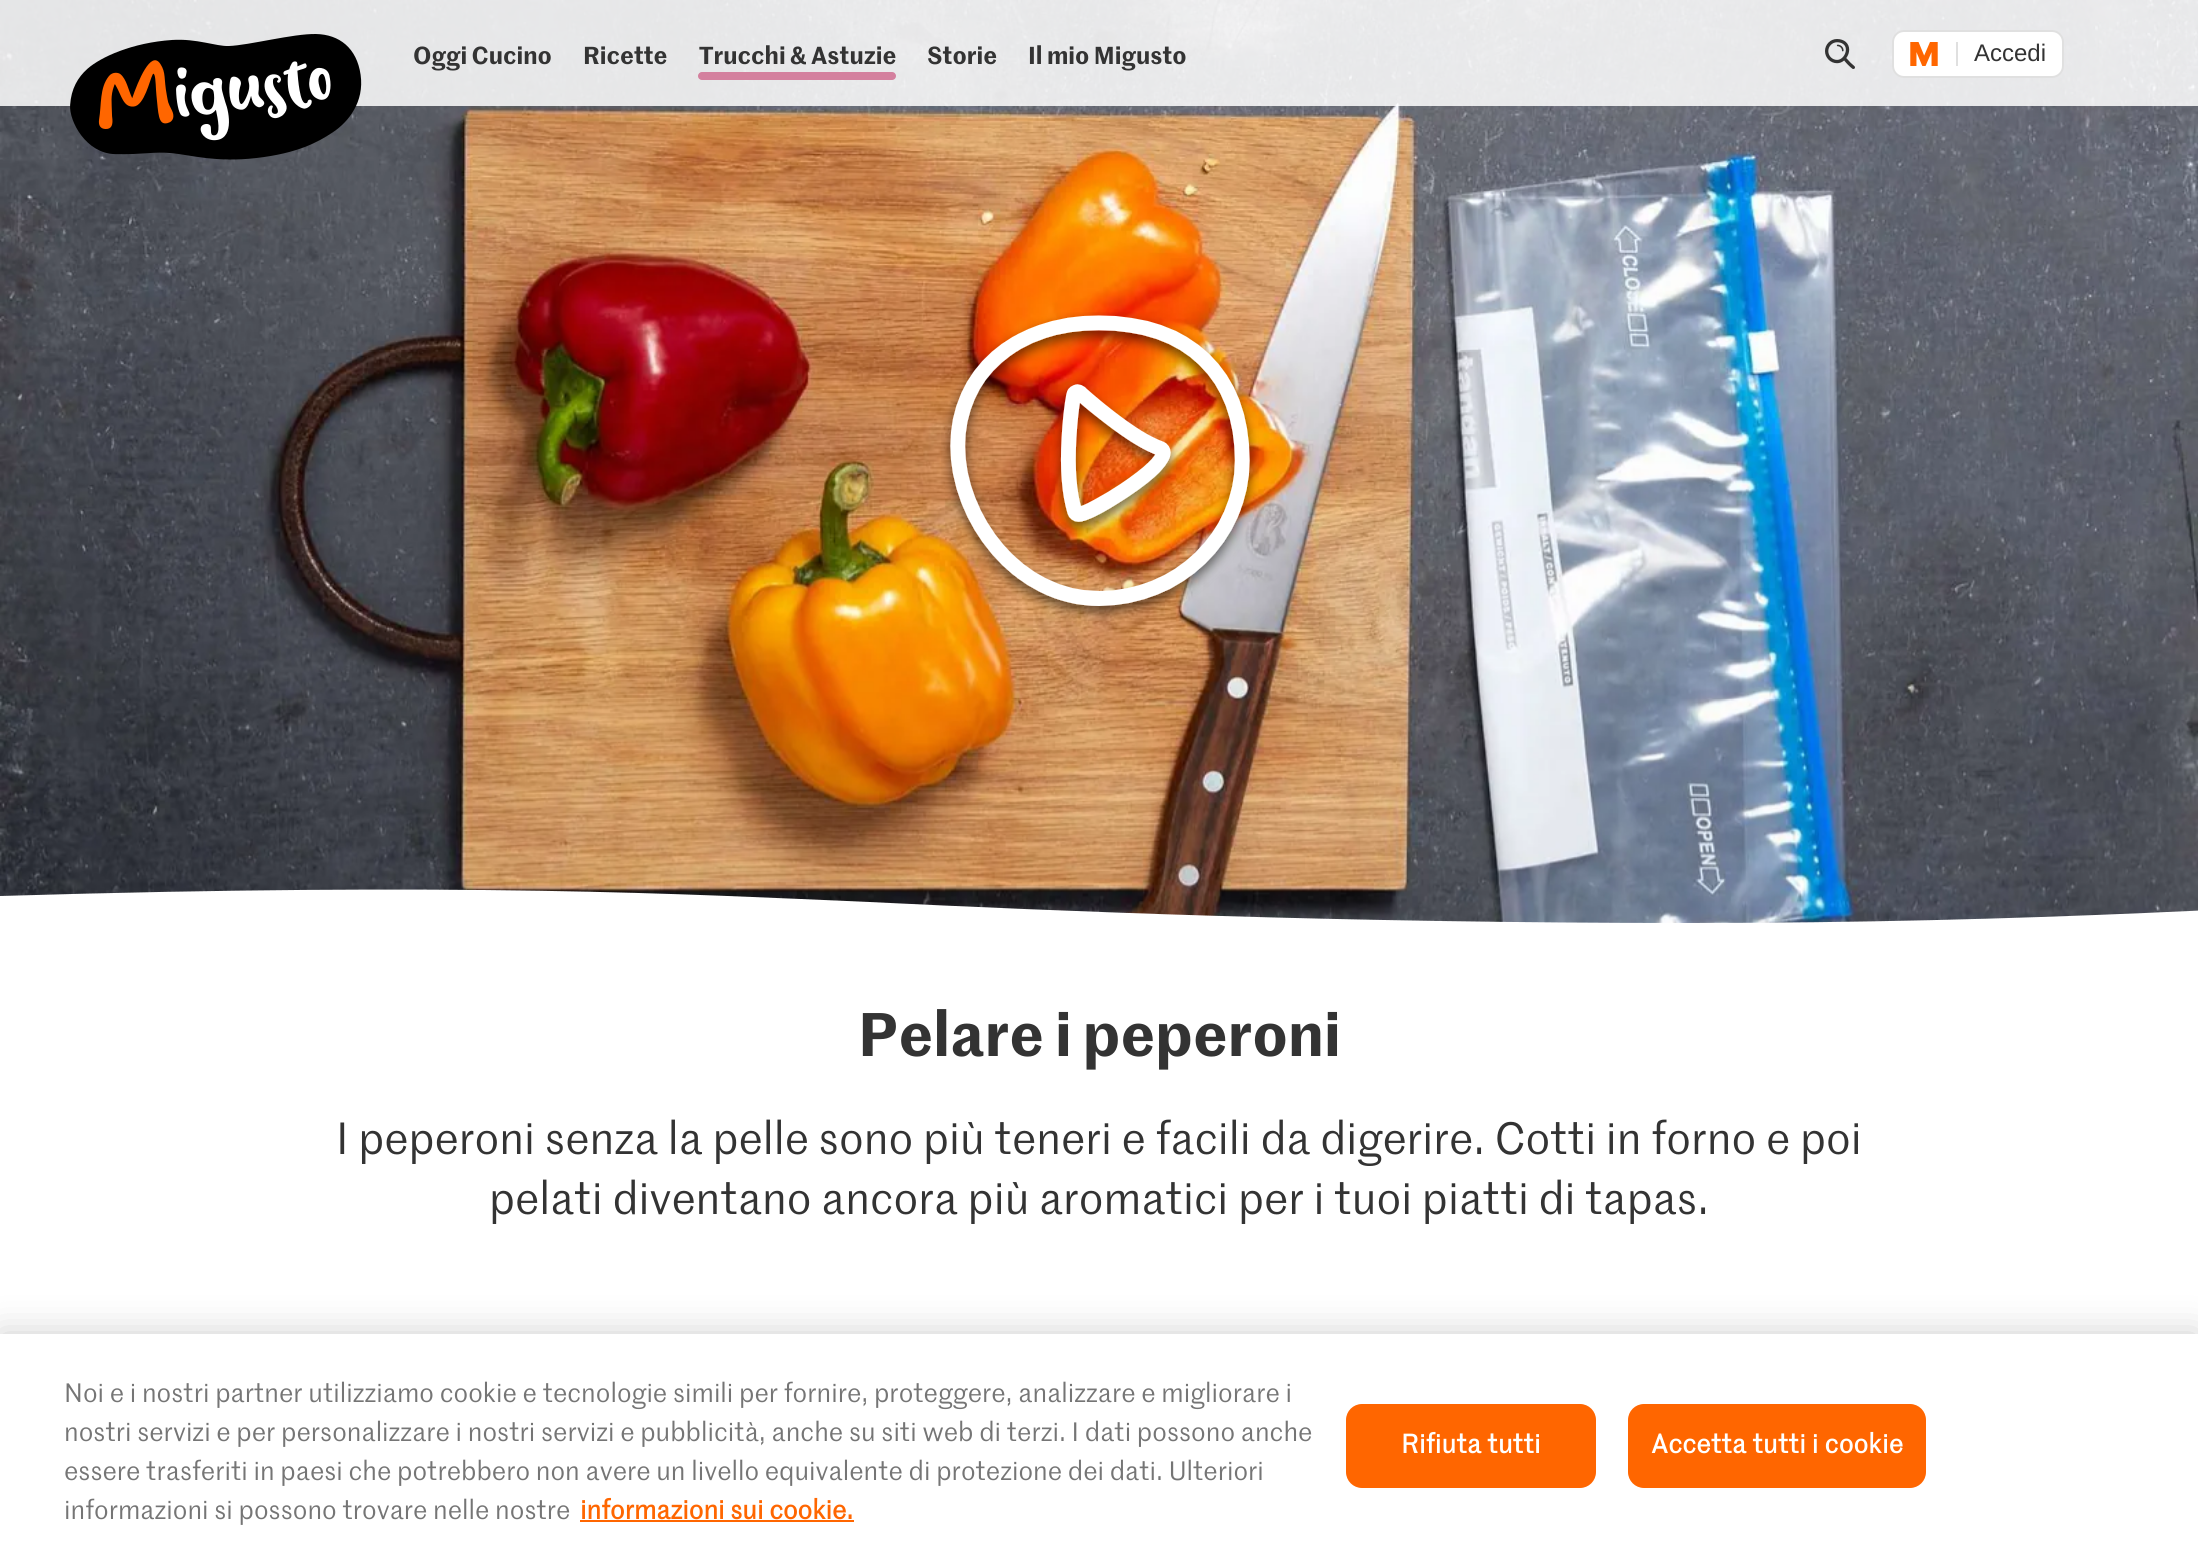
#include <cairo.h>
#include <math.h>
#include <stddef.h>


static void rgb(cairo_t *cr, int r, int g, int b)
{
	cairo_set_source_rgb(cr, r / 255.0, g / 255.0, b / 255.0);
}

static void face(cairo_t *cr, const char *family, double size, int italic, int bold)
{
	cairo_select_font_face(cr, family, italic ? CAIRO_FONT_SLANT_ITALIC : CAIRO_FONT_SLANT_NORMAL,
		bold ? CAIRO_FONT_WEIGHT_BOLD : CAIRO_FONT_WEIGHT_NORMAL);
	cairo_set_font_size(cr, size);
}

static void label(cairo_t *cr, double x, double y, const char *s)
{
	cairo_move_to(cr, x, y);
	cairo_show_text(cr, s);
}

static void tracked(cairo_t *cr, double x, double y, const char *s, double letter, double word)
{
	cairo_move_to(cr, x, y);
	while (*s) {
		char ch[5] = {0};
		int n = 0;
		do ch[n++] = *s++; while ((*s & 0xC0) == 0x80);
		cairo_show_text(cr, ch);
		cairo_rel_move_to(cr, letter + word * (*ch == ' '), 0);
	}
}

static void rect(cairo_t *cr, double x, double y, double w, double h)
{
	cairo_rectangle(cr, x, y, w, h);
	cairo_fill(cr);
}

static void rrect(cairo_t *cr, double x, double y, double w, double h, double r)
{
	cairo_new_sub_path(cr);
	cairo_arc(cr, x + w - r, y + h - r, r, 0, M_PI / 2);
	cairo_arc(cr, x + r, y + h - r, r, M_PI / 2, M_PI);
	cairo_arc(cr, x + r, y + r, r, M_PI, 1.5 * M_PI);
	cairo_arc(cr, x + w - r, y + r, r, 1.5 * M_PI, 2 * M_PI);
	cairo_close_path(cr);
}

static void soft_shadow(cairo_t *cr, double x, double y, double w, double h, double r, double blur, double alpha)
{
	cairo_push_group_with_content(cr, CAIRO_CONTENT_ALPHA);
	cairo_set_operator(cr, CAIRO_OPERATOR_SOURCE);
	for (int i = 15; i >= -15 && fmin(w, h) + blur * i / 3 > 0; i -= 2) {
		double e = blur * i / 6;
		cairo_set_source_rgba(cr, 0, 0, 0, alpha * erfc((i - 1) / 8.5) / 2);
		rrect(cr, x - e, y - e, w + 2 * e, h + 2 * e, fmax(0, fmin(r + e + blur * .6, fmin(w, h) / 2 + e)));
		cairo_fill(cr);
	}
	cairo_pattern_t *soft = cairo_pop_group(cr);
	cairo_mask(cr, soft);
	cairo_pattern_destroy(soft);
}

static void image(cairo_t *cr, const char *path, double x, double y, double w, double h)
{
	cairo_surface_t *image = cairo_image_surface_create_from_png(path);
	cairo_save(cr);
	cairo_set_source_surface(cr, image, x, y);
	cairo_rectangle(cr, x, y, w, h);
	cairo_fill(cr);
	cairo_restore(cr);
	cairo_surface_destroy(image);
}

static void draw(cairo_t *cr) {
	rgb(cr, 255, 255, 255);
	cairo_paint(cr);
	image(cr, "image3.png", 0, 0, 2198, 923);
	cairo_set_source_rgba(cr, 1, 1, 1, 0.85);
	rect(cr, 0, 0, 2198, 106);
	image(cr, "image0.png", 70, 34, 292, 126);
	face(cr, "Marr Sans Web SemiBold", 24, 0, 0);
	rgb(cr, 51, 51, 51);
	label(cr, 413, 64, "Oggi Cucino");
	label(cr, 583, 64, "Ricette");
	label(cr, 699, 64, "Trucchi & Astuzie");
	rgb(cr, 212, 128, 158);
	rrect(cr, 698, 72, 198, 8, 4);
	cairo_fill(cr);
	rgb(cr, 51, 51, 51);
	label(cr, 927, 64, "Storie");
	label(cr, 1028, 64, "Il mio Migusto");
	image(cr, "image1.png", 1825, 39, 30, 30);
	rgb(cr, 255, 255, 255);
	rrect(cr, 1893, 31, 170, 46, 11);
	cairo_fill_preserve(cr);
	rgb(cr, 224, 224, 224);
	cairo_stroke(cr);
	image(cr, "image2.png", 1910, 42, 28, 24);
	rect(cr, 1956, 42, 2, 24);
	face(cr, "Liberation Sans", 24, 0, 0);
	rgb(cr, 51, 51, 51);
	label(cr, 1974, 61, "Accedi");
	image(cr, "image4.png", 941, 312, 318, 309);
	cairo_save(cr);
	cairo_rectangle(cr, 0, 888, 2198, 50);
	cairo_clip(cr);
	rgb(cr, 255, 255, 255);
	cairo_set_fill_rule(cr, CAIRO_FILL_RULE_EVEN_ODD);
	cairo_new_path(cr);
	cairo_move_to(cr, 0, 896);
	cairo_line_to(cr, 0, 939);
	cairo_line_to(cr, 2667, 939);
	cairo_line_to(cr, 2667, 888);
	cairo_curve_to(cr, 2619, 888, 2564, 890, 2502, 894);
	cairo_curve_to(cr, 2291, 906, 2031, 923, 1689, 923);
	cairo_curve_to(cr, 1338, 923, 1054, 911, 869, 902);
	cairo_curve_to(cr, 684, 894, 464, 882, 0, 896);
	cairo_fill(cr);
	cairo_restore(cr);
	face(cr, "Marr Sans Web SemiBold", 60, 0, 0);
	label(cr, 858, 1056, "Pelare i peperoni");
	face(cr, "Marr Sans Web", 44, 0, 0);
	label(cr, 336, 1154, "I peperoni senza la pelle sono più teneri e facili da digerire. Cotti in forno e poi");
	label(cr, 489, 1214, "pelati diventano ancora più aromatici per i tuoi piatti di tapas.");
	rgb(cr, 0, 0, 0);
	soft_shadow(cr, 0, 1334, 2198, 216, 0, 18, 0.2);
	rgb(cr, 255, 255, 255);
	rect(cr, 0, 1334, 2198, 215);
	face(cr, "Marr Sans Web", 26, 0, 0);
	rgb(cr, 117, 117, 117);
	label(cr, 64, 1402, "Noi e i nostri partner utilizziamo cookie e tecnologie simili per fornire, proteggere, analizzare e migliorare i");
	label(cr, 64, 1441, "nostri servizi e per personalizzare i nostri servizi e pubblicità, anche su siti web di terzi. I dati possono anche");
	label(cr, 64, 1480, "essere trasferiti in paesi che potrebbero non avere un livello equivalente di protezione dei dati. Ulteriori");
	label(cr, 64, 1519, "informazioni si possono trovare nelle nostre");
	face(cr, "Marr Sans Web", 26, 0, 1);
	rgb(cr, 255, 102, 0);
	label(cr, 580, 1519, "informazioni sui cookie.");
	rect(cr, 580, 1520, 274, 2);
	rrect(cr, 1347, 1405, 248, 82, 15);
	cairo_fill_preserve(cr);
	cairo_stroke(cr);
	rgb(cr, 255, 255, 255);
	tracked(cr, 1401, 1453, "Rifiuta tutti", 0.25, 0);
	rgb(cr, 255, 102, 0);
	rrect(cr, 1629, 1405, 296, 82, 15);
	cairo_fill_preserve(cr);
	cairo_stroke(cr);
	rgb(cr, 255, 255, 255);
	tracked(cr, 1651, 1453, "Accetta tutti i cookie", 0.25, 0);
}

int main(void) {
	cairo_surface_t *surface = cairo_image_surface_create(CAIRO_FORMAT_RGB24, 2198, 1549);
	cairo_t *cr = cairo_create(surface);
	cairo_font_options_t *options = cairo_font_options_create();
	cairo_font_options_set_hint_metrics(options, CAIRO_HINT_METRICS_OFF);
	cairo_font_options_set_hint_style(options, CAIRO_HINT_STYLE_NONE);
	cairo_set_font_options(cr, options);
	cairo_set_miter_limit(cr, 4);
	draw(cr);
	cairo_surface_write_to_png(surface, "render.png");
	cairo_font_options_destroy(options);
	cairo_destroy(cr);
	cairo_surface_destroy(surface);
	return 0;
}
